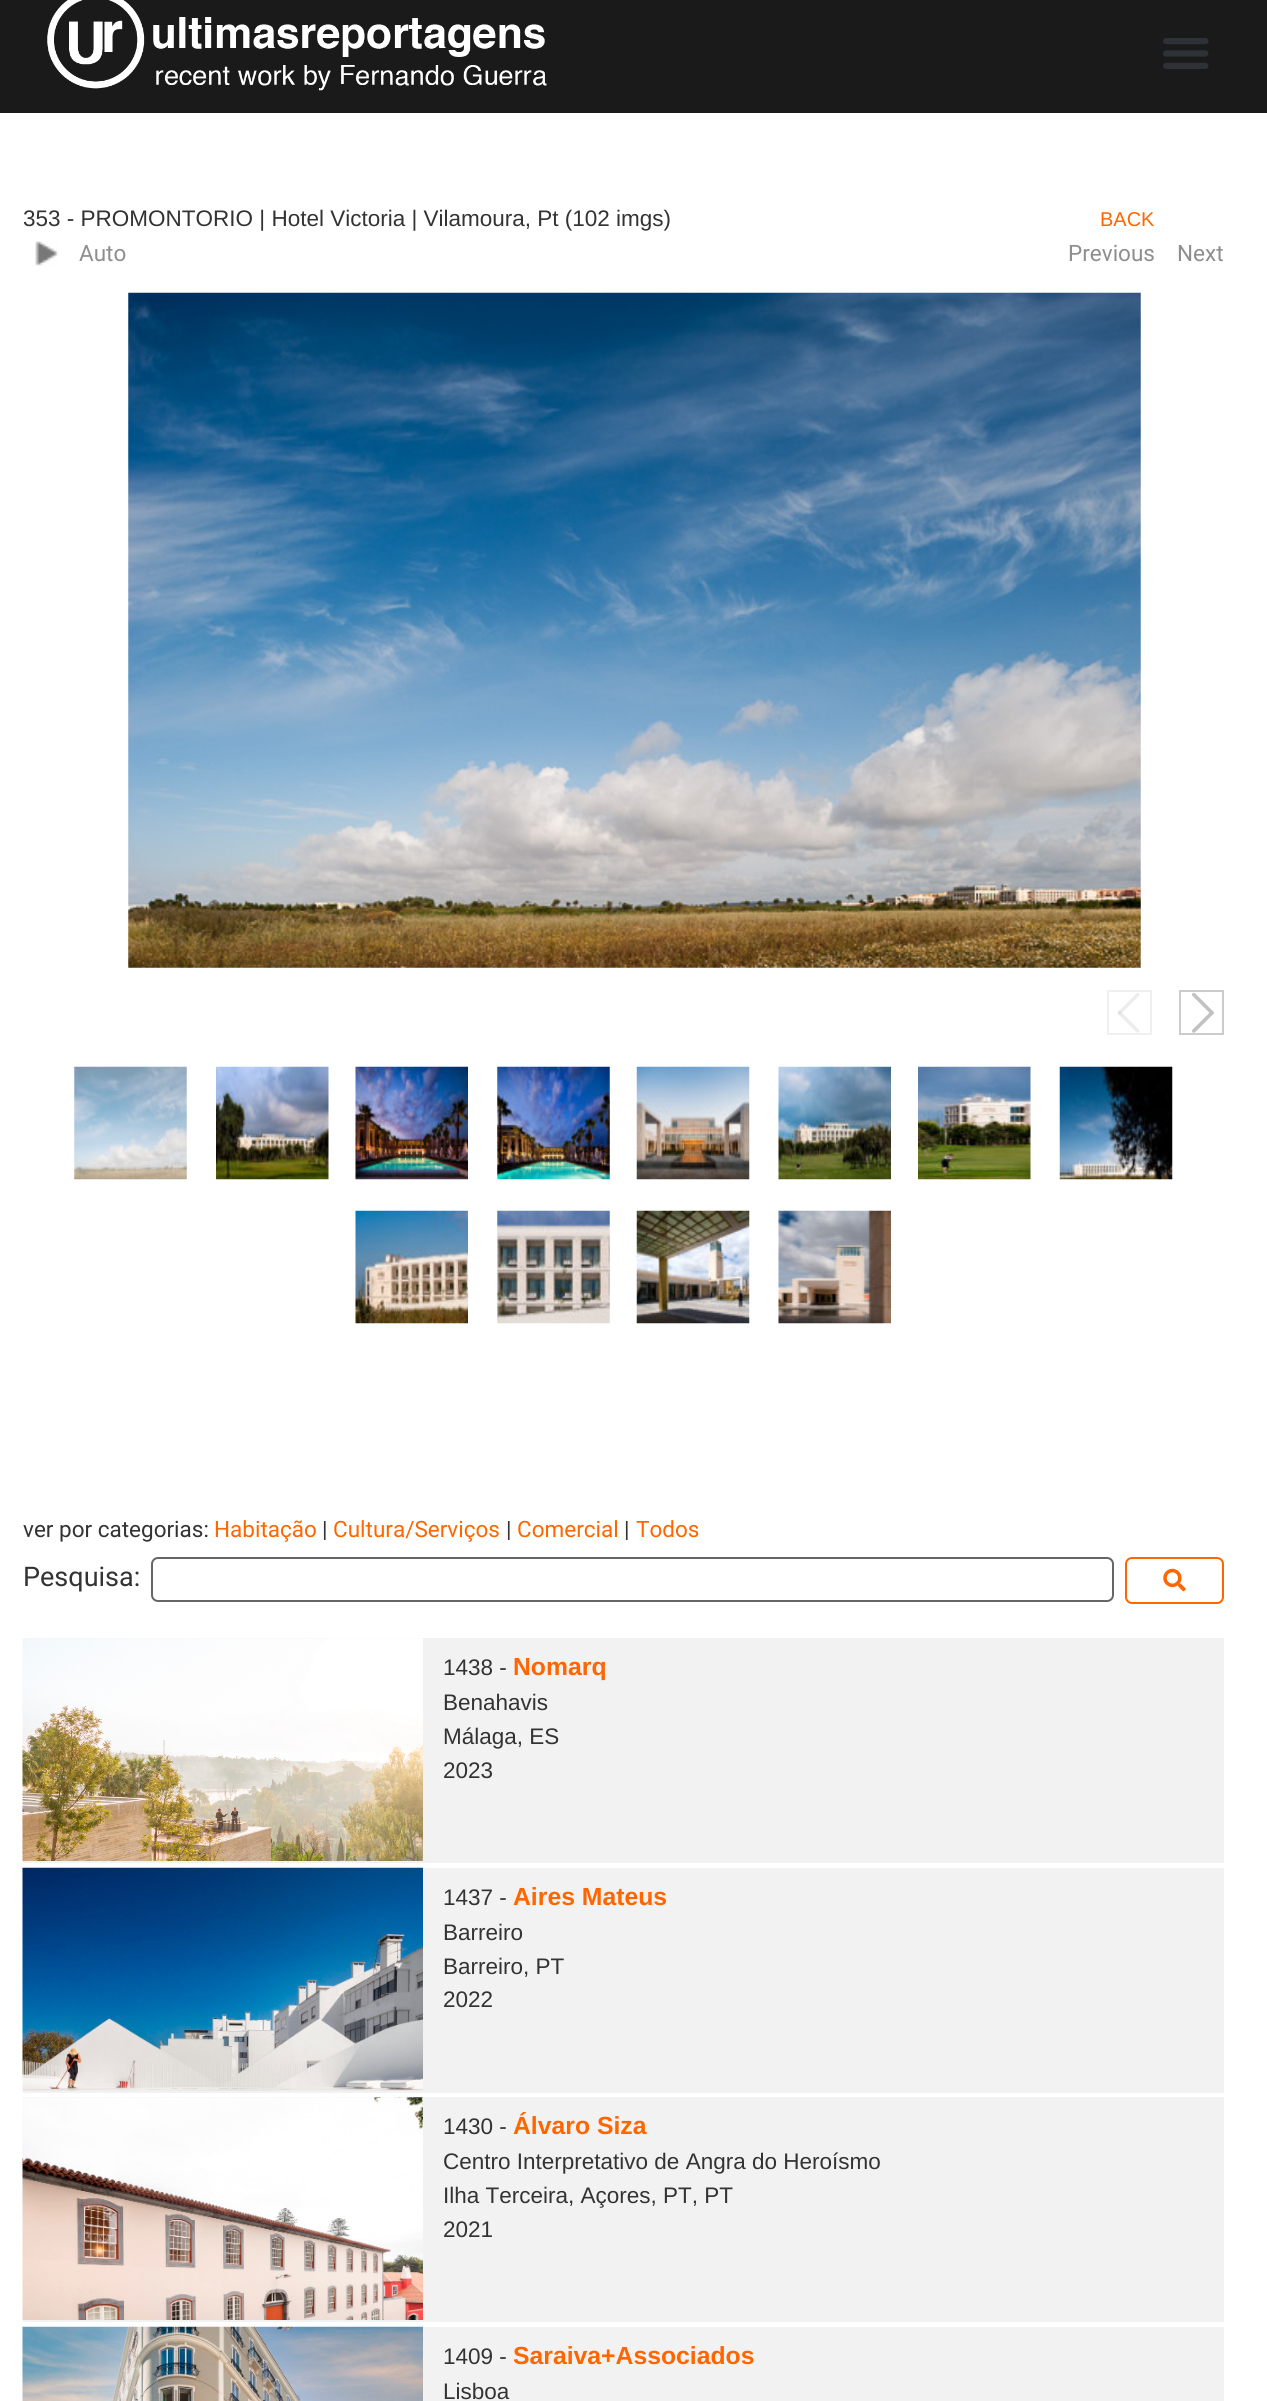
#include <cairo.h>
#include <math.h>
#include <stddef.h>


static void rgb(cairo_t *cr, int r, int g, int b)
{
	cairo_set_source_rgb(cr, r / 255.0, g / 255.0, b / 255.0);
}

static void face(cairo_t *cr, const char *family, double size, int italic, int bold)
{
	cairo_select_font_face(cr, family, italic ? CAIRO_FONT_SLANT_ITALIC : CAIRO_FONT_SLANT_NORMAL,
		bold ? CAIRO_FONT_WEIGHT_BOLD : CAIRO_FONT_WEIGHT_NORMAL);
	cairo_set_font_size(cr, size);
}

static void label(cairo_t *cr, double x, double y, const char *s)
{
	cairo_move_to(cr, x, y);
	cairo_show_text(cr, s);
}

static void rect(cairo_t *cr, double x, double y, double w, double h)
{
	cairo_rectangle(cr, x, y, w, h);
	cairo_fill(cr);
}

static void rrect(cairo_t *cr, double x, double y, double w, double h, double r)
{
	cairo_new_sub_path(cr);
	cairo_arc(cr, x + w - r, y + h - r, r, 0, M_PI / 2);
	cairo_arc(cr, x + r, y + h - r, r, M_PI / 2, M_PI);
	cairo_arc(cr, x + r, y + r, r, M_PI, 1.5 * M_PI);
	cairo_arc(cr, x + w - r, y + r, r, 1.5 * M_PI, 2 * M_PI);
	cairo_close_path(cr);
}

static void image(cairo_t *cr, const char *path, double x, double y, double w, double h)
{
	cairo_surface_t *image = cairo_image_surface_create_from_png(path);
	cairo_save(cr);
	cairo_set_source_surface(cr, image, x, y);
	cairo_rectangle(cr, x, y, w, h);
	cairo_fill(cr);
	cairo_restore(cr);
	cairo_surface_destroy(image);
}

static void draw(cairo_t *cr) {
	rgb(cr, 255, 255, 255);
	cairo_paint(cr);
	rgb(cr, 26, 26, 26);
	rect(cr, 0, 0, 1267, 113);
	image(cr, "image0.png", 47, 0, 500, 91);
	image(cr, "image1.png", 1163, 38, 46, 31);
	face(cr, "Liberation Sans", 22.5, 0, 0);
	rgb(cr, 51, 51, 51);
	label(cr, 23, 226, "353 - PROMONTORIO | Hotel Victoria | Vilamoura, Pt (102 imgs)");
	face(cr, "Liberation Sans", 20, 0, 0);
	rgb(cr, 255, 102, 0);
	label(cr, 1100, 226, "BACK");
	image(cr, "image2.png", 35, 241, 24, 25);
	face(cr, "Roboto", 22.5, 0, 0);
	rgb(cr, 142, 142, 142);
	label(cr, 79, 261, "Auto");
	label(cr, 1068, 261, "Previous");
	label(cr, 1177, 261, "Next");
	image(cr, "image3.png", 128, 292, 1013, 676);
	image(cr, "image4.png", 1117, 993, 23, 40);
	cairo_rectangle(cr, 1108, 991, 43, 43);
	rgb(cr, 240, 240, 240);
	cairo_stroke(cr);
	image(cr, "image5.png", 1192, 992, 22, 41);
	cairo_rectangle(cr, 1180, 991, 43, 43);
	rgb(cr, 204, 204, 204);
	cairo_stroke(cr);
	image(cr, "image6.png", 74, 1066, 113, 114);
	image(cr, "image7.png", 216, 1066, 113, 114);
	image(cr, "image8.png", 355, 1066, 113, 114);
	image(cr, "image9.png", 497, 1066, 113, 114);
	image(cr, "image10.png", 636, 1066, 114, 114);
	image(cr, "image11.png", 778, 1066, 113, 114);
	image(cr, "image12.png", 918, 1066, 113, 114);
	image(cr, "image13.png", 1059, 1066, 114, 114);
	image(cr, "image14.png", 355, 1210, 113, 114);
	image(cr, "image15.png", 497, 1210, 113, 114);
	image(cr, "image16.png", 636, 1210, 114, 114);
	image(cr, "image17.png", 778, 1210, 113, 114);
	rgb(cr, 51, 51, 51);
	label(cr, 23, 1537, "ver por categorias:");
	rgb(cr, 255, 102, 0);
	label(cr, 214, 1537, "Habitação");
	rgb(cr, 51, 51, 51);
	label(cr, 322, 1537, "|");
	rgb(cr, 255, 102, 0);
	label(cr, 333, 1537, "Cultura/Serviços");
	rgb(cr, 51, 51, 51);
	label(cr, 506, 1537, "|");
	rgb(cr, 255, 102, 0);
	label(cr, 517, 1537, "Comercial");
	rgb(cr, 51, 51, 51);
	label(cr, 624, 1537, "|");
	rgb(cr, 255, 102, 0);
	label(cr, 636, 1537, "Todos");
	face(cr, "Roboto", 27, 0, 0);
	rgb(cr, 51, 51, 51);
	label(cr, 23, 1586, "Pesquisa:");
	rrect(cr, 152, 1558, 961, 43, 6);
	rgb(cr, 102, 102, 102);
	cairo_stroke(cr);
	rrect(cr, 1126, 1558, 97, 45, 6);
	rgb(cr, 255, 102, 0);
	cairo_stroke(cr);
	image(cr, "image18.png", 1163, 1568, 23, 24);
	rgb(cr, 242, 242, 242);
	rect(cr, 23, 1638, 1201, 225);
	image(cr, "image19.png", 22, 1638, 401, 223);
	face(cr, "Liberation Sans", 22.5, 0, 0);
	rgb(cr, 51, 51, 51);
	label(cr, 443, 1675, "1438 -");
	face(cr, "Liberation Sans", 24.75, 0, 1);
	rgb(cr, 255, 102, 0);
	label(cr, 513, 1675, "Nomarq");
	face(cr, "Liberation Sans", 22.5, 0, 0);
	rgb(cr, 51, 51, 51);
	label(cr, 443, 1710, "Benahavis");
	label(cr, 443, 1744, "Málaga, ES");
	label(cr, 443, 1778, "2023");
	rgb(cr, 242, 242, 242);
	rect(cr, 23, 1868, 1201, 225);
	image(cr, "image20.png", 22, 1867, 401, 224);
	rgb(cr, 51, 51, 51);
	label(cr, 443, 1905, "1437 -");
	face(cr, "Liberation Sans", 24.75, 0, 1);
	rgb(cr, 255, 102, 0);
	label(cr, 513, 1905, "Aires Mateus");
	face(cr, "Liberation Sans", 22.5, 0, 0);
	rgb(cr, 51, 51, 51);
	label(cr, 443, 1940, "Barreiro");
	label(cr, 443, 1974, "Barreiro, PT");
	label(cr, 443, 2007, "2022");
	rgb(cr, 242, 242, 242);
	rect(cr, 23, 2097, 1201, 225);
	image(cr, "image21.png", 22, 2097, 401, 223);
	rgb(cr, 51, 51, 51);
	label(cr, 443, 2134, "1430 -");
	face(cr, "Liberation Sans", 24.75, 0, 1);
	rgb(cr, 255, 102, 0);
	label(cr, 513, 2134, "Álvaro Siza");
	face(cr, "Liberation Sans", 22.5, 0, 0);
	rgb(cr, 51, 51, 51);
	label(cr, 443, 2169, "Centro Interpretativo de Angra do Heroísmo");
	label(cr, 443, 2203, "Ilha Terceira, Açores, PT, PT");
	label(cr, 443, 2237, "2021");
	rgb(cr, 242, 242, 242);
	rect(cr, 423, 2327, 801, 74);
	image(cr, "image22.png", 22, 2326, 401, 75);
	rgb(cr, 51, 51, 51);
	label(cr, 443, 2364, "1409 -");
	face(cr, "Liberation Sans", 24.75, 0, 1);
	rgb(cr, 255, 102, 0);
	label(cr, 513, 2364, "Saraiva+Associados");
	face(cr, "Liberation Sans", 22.5, 0, 0);
	rgb(cr, 51, 51, 51);
	label(cr, 443, 2399, "Lisboa");
}

int main(void) {
	cairo_surface_t *surface = cairo_image_surface_create(CAIRO_FORMAT_RGB24, 1267, 2401);
	cairo_t *cr = cairo_create(surface);
	cairo_font_options_t *options = cairo_font_options_create();
	cairo_font_options_set_hint_metrics(options, CAIRO_HINT_METRICS_OFF);
	cairo_font_options_set_hint_style(options, CAIRO_HINT_STYLE_NONE);
	cairo_set_font_options(cr, options);
	cairo_set_miter_limit(cr, 4);
	draw(cr);
	cairo_surface_write_to_png(surface, "render.png");
	cairo_font_options_destroy(options);
	cairo_destroy(cr);
	cairo_surface_destroy(surface);
	return 0;
}
